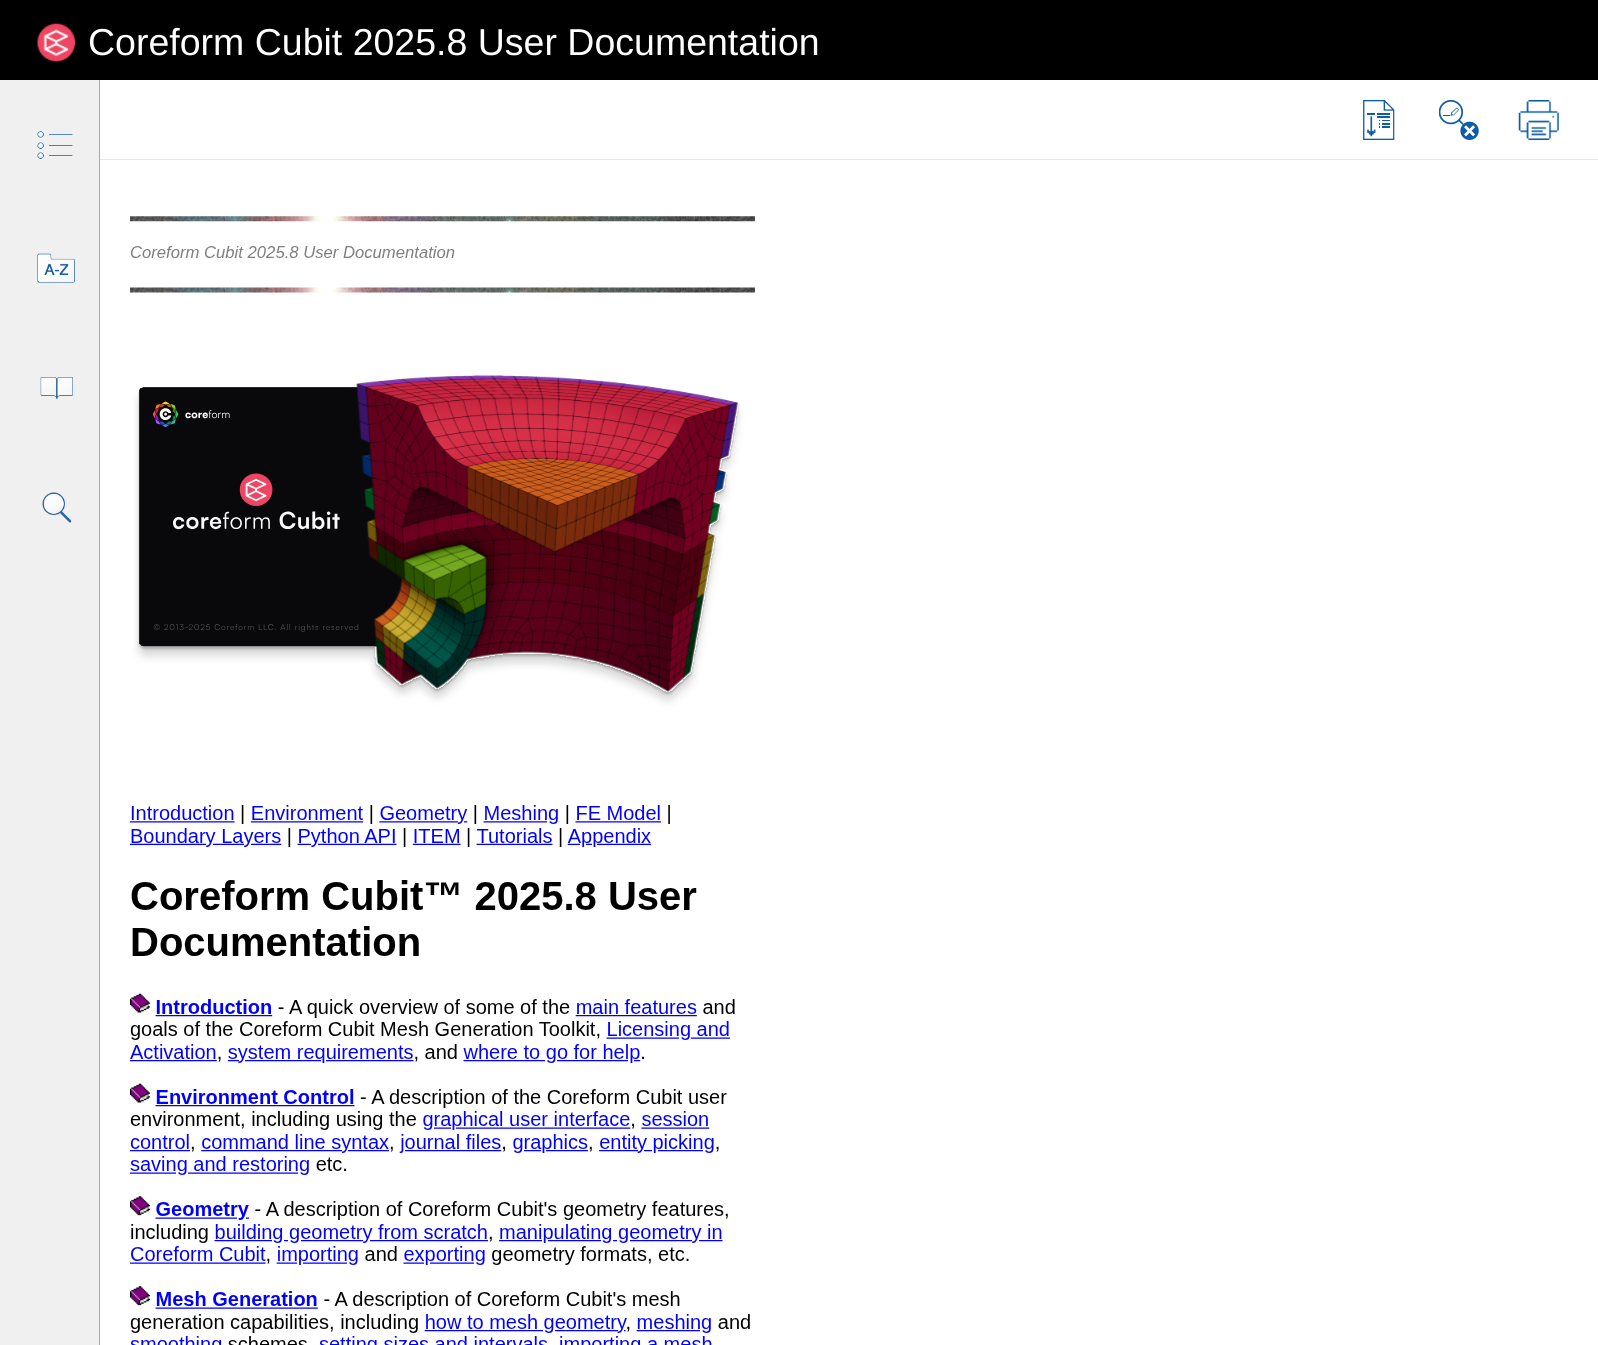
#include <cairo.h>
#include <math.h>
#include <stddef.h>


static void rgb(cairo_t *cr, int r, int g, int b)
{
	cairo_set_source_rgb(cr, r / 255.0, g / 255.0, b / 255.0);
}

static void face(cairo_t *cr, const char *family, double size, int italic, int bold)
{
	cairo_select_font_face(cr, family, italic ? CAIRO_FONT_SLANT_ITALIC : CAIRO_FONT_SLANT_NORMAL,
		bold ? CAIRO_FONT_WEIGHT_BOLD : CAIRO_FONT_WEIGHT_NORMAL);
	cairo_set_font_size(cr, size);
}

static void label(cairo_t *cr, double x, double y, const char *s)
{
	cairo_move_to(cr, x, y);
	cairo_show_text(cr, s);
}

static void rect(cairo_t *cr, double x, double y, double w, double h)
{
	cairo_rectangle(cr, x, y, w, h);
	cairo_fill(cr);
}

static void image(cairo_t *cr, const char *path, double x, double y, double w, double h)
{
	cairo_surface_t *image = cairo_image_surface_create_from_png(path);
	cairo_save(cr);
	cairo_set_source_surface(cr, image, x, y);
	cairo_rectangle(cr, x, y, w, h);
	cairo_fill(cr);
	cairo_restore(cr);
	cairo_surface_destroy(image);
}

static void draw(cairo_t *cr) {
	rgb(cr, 0, 0, 0);
	cairo_paint(cr);
	image(cr, "image0.png", 37, 23, 38, 39);
	face(cr, "Liberation Sans", 37.5, 0, 0);
	rgb(cr, 255, 255, 255);
	label(cr, 88, 55, "Coreform Cubit 2025.8 User Documentation");
	rgb(cr, 240, 240, 240);
	rect(cr, 0, 80, 99, 1265);
	rgb(cr, 170, 167, 167);
	rect(cr, 99, 80, 1, 1265);
	image(cr, "image1.png", 37, 131, 36, 28);
	image(cr, "image2.png", 37, 253, 38, 30);
	image(cr, "image3.png", 40, 377, 33, 22);
	image(cr, "image4.png", 42, 492, 30, 31);
	rgb(cr, 255, 255, 255);
	rect(cr, 100, 80, 1498, 1265);
	rgb(cr, 230, 230, 230);
	rect(cr, 100, 159, 1498, 1);
	image(cr, "image5.png", 1363, 100, 32, 40);
	image(cr, "image6.png", 1439, 100, 40, 40);
	image(cr, "image7.png", 1518, 100, 41, 40);
	image(cr, "image8.png", 130, 216, 625, 1129);
}

int main(void) {
	cairo_surface_t *surface = cairo_image_surface_create(CAIRO_FORMAT_RGB24, 1598, 1345);
	cairo_t *cr = cairo_create(surface);
	cairo_font_options_t *options = cairo_font_options_create();
	cairo_font_options_set_hint_metrics(options, CAIRO_HINT_METRICS_OFF);
	cairo_font_options_set_hint_style(options, CAIRO_HINT_STYLE_NONE);
	cairo_set_font_options(cr, options);
	cairo_set_miter_limit(cr, 4);
	draw(cr);
	cairo_surface_write_to_png(surface, "render.png");
	cairo_font_options_destroy(options);
	cairo_destroy(cr);
	cairo_surface_destroy(surface);
	return 0;
}
